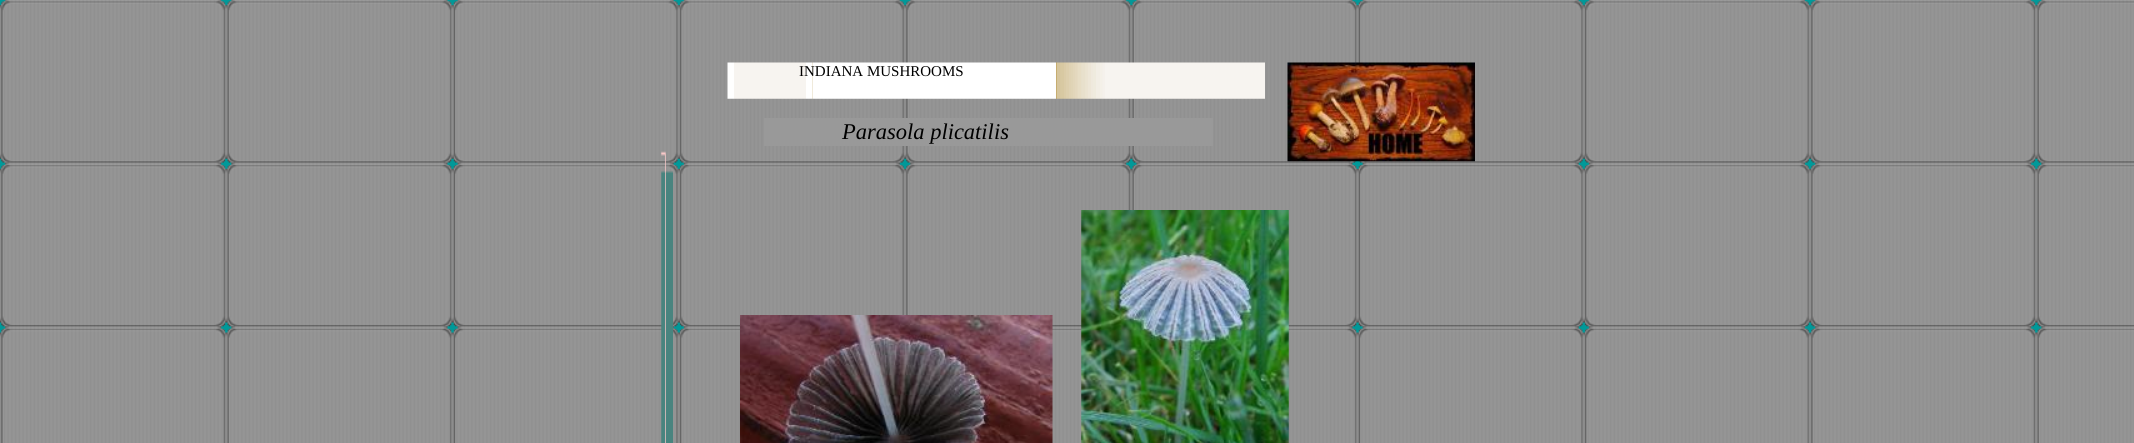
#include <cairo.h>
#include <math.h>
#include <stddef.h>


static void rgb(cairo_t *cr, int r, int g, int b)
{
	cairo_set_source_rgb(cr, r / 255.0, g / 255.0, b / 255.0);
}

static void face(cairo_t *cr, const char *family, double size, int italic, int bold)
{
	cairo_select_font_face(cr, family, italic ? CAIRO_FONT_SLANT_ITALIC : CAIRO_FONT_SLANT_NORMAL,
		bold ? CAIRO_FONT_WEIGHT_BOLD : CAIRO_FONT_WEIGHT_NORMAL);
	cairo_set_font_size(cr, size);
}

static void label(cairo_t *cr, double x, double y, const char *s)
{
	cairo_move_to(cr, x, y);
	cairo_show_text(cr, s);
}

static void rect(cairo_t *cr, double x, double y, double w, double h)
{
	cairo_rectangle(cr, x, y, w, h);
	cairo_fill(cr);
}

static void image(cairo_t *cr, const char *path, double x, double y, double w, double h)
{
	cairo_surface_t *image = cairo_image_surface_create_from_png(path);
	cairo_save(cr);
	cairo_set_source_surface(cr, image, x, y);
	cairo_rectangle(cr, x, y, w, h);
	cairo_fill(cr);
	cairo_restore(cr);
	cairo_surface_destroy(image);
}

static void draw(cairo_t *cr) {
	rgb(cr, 0, 153, 153);
	cairo_paint(cr);
	image(cr, "image0.png", 0, 0, 2134, 443);
	image(cr, "image1.png", 727, 62, 538, 37);
	image(cr, "image2.png", 1287, 62, 188, 100);
	face(cr, "Liberation Serif", 15, 0, 0);
	rgb(cr, 0, 0, 0);
	label(cr, 799, 76, "INDIANA MUSHROOMS");
	rgb(cr, 153, 153, 153);
	rect(cr, 764, 118, 449, 28);
	face(cr, "Liberation Serif", 22.5, 1, 0);
	rgb(cr, 0, 0, 0);
	label(cr, 842, 139, "Parasola plicatilis");
	image(cr, "image3.png", 661, 151, 12, 292);
	image(cr, "image4.png", 740, 315, 313, 128);
	image(cr, "image5.png", 1081, 210, 208, 233);
}

int main(void) {
	cairo_surface_t *surface = cairo_image_surface_create(CAIRO_FORMAT_RGB24, 2134, 443);
	cairo_t *cr = cairo_create(surface);
	cairo_font_options_t *options = cairo_font_options_create();
	cairo_font_options_set_hint_metrics(options, CAIRO_HINT_METRICS_OFF);
	cairo_font_options_set_hint_style(options, CAIRO_HINT_STYLE_NONE);
	cairo_set_font_options(cr, options);
	cairo_set_miter_limit(cr, 4);
	draw(cr);
	cairo_surface_write_to_png(surface, "render.png");
	cairo_font_options_destroy(options);
	cairo_destroy(cr);
	cairo_surface_destroy(surface);
	return 0;
}
